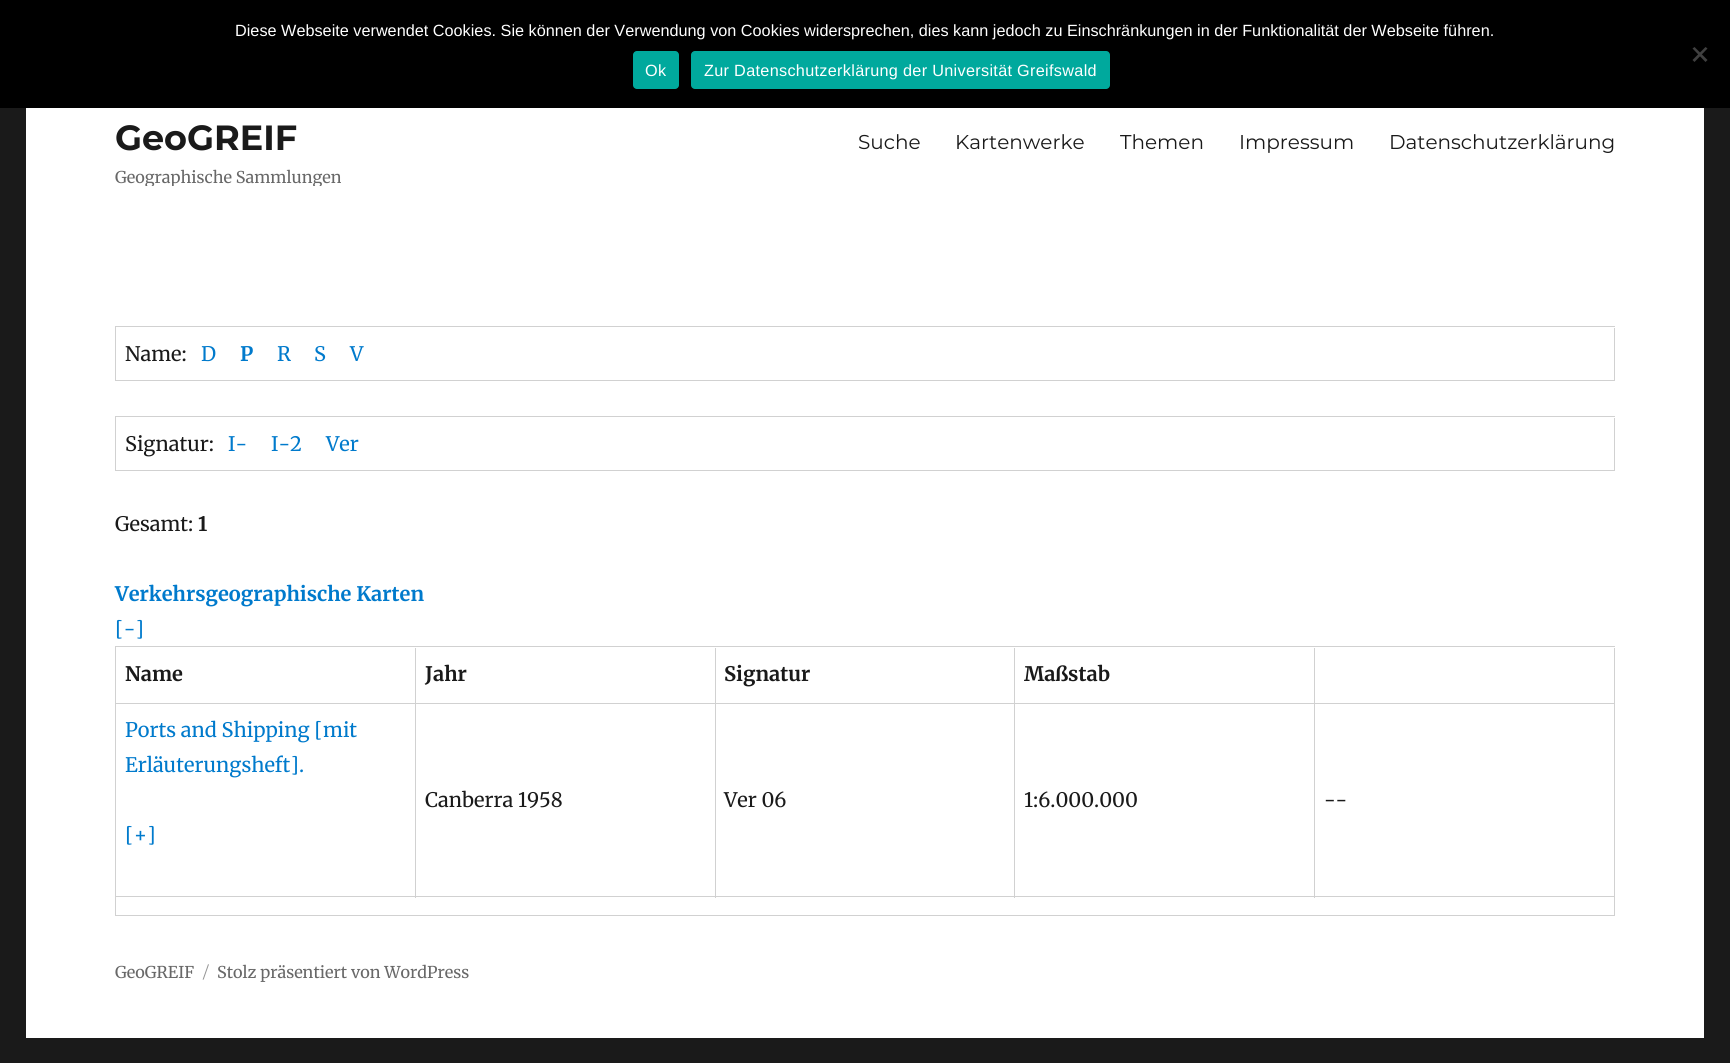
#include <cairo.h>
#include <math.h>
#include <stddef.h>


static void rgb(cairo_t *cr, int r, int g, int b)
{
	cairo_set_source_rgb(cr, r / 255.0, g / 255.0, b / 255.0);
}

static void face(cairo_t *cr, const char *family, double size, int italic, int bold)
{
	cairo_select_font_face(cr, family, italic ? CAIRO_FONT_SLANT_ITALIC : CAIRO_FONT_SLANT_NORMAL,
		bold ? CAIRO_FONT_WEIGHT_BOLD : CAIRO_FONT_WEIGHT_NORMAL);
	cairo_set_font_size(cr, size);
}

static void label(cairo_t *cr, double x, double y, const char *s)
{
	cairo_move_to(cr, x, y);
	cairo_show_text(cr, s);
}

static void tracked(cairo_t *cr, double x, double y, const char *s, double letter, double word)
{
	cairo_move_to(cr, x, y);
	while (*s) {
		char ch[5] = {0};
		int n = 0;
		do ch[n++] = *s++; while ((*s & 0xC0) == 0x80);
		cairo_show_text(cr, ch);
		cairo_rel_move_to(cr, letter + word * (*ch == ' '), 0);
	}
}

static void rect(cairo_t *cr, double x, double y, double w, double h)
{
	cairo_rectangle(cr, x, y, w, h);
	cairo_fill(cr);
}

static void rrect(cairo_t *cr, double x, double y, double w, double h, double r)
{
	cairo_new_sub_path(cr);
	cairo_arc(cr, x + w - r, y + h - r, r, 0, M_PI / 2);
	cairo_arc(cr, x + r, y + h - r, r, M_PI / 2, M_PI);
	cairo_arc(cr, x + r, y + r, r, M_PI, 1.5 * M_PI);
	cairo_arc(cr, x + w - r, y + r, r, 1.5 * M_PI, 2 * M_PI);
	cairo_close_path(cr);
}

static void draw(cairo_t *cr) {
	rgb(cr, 26, 26, 26);
	cairo_paint(cr);
	rgb(cr, 0, 0, 0);
	rect(cr, 0, 0, 1730, 108);
	face(cr, "Liberation Sans", 16.25, 0, 0);
	rgb(cr, 255, 255, 255);
	label(cr, 235, 36, "Diese Webseite verwendet Cookies. Sie können der Verwendung von Cookies widersprechen, dies kann jedoch zu Einschränkungen in der Funktionalität der Webseite führen.");
	rgb(cr, 64, 64, 64);
	cairo_new_path(cr);
	cairo_move_to(cr, 1705.5, 47);
	cairo_line_to(cr, 1707.5, 48.5);
	cairo_line_to(cr, 1694.5, 62);
	cairo_line_to(cr, 1692.5, 60);
	cairo_close_path(cr);
	cairo_fill(cr);
	cairo_new_path(cr);
	cairo_move_to(cr, 1692.5, 48.5);
	cairo_line_to(cr, 1694.5, 47);
	cairo_line_to(cr, 1707.5, 60);
	cairo_line_to(cr, 1705.5, 62);
	cairo_close_path(cr);
	cairo_fill(cr);
	rgb(cr, 0, 169, 157);
	rrect(cr, 633, 51, 46, 38, 4);
	cairo_fill(cr);
	rgb(cr, 255, 255, 255);
	tracked(cr, 645, 76, "Ok", 0.3, 0);
	rgb(cr, 0, 169, 157);
	rrect(cr, 691, 51, 419, 38, 4);
	cairo_fill(cr);
	rgb(cr, 255, 255, 255);
	tracked(cr, 704, 76, "Zur Datenschutzerklärung der Universität Greifswald", 0.3, 0);
	rect(cr, 26, 108, 1678, 930);
	face(cr, "Montserrat", 35, 0, 1);
	rgb(cr, 26, 26, 26);
	label(cr, 115, 150, "GeoGREIF");
	cairo_save(cr);
	cairo_rectangle(cr, 115, 116, 226, 70);
	cairo_clip(cr);
	face(cr, "Merriweather", 16.25, 0, 0);
	rgb(cr, 104, 104, 104);
	label(cr, 115, 183, "Geographische Sammlungen");
	cairo_restore(cr);
	face(cr, "Montserrat", 20, 0, 0);
	label(cr, 858, 149, "Suche");
	label(cr, 955, 149, "Kartenwerke");
	label(cr, 1120, 149, "Themen");
	label(cr, 1239, 149, "Impressum");
	label(cr, 1389, 149, "Datenschutzerklärung");
	rgb(cr, 209, 209, 209);
	rect(cr, 115, 326, 1500, 1);
	rect(cr, 115, 326, 1, 55);
	rect(cr, 1614, 328, 1, 53);
	rect(cr, 116, 380, 1499, 1);
	face(cr, "Merriweather", 20, 0, 0);
	rgb(cr, 26, 26, 26);
	label(cr, 125, 361, "Name:");
	rgb(cr, 0, 122, 204);
	label(cr, 201, 361, "D");
	face(cr, "Merriweather", 20, 0, 1);
	label(cr, 240, 361, "P");
	face(cr, "Merriweather", 20, 0, 0);
	label(cr, 277, 361, "R");
	label(cr, 314, 361, "S");
	label(cr, 350, 361, "V");
	rgb(cr, 209, 209, 209);
	rect(cr, 115, 416, 1500, 1);
	rect(cr, 115, 416, 1, 55);
	rect(cr, 1614, 418, 1, 53);
	rect(cr, 116, 470, 1499, 1);
	rgb(cr, 26, 26, 26);
	label(cr, 125, 451, "Signatur:");
	rgb(cr, 0, 122, 204);
	label(cr, 228, 451, "I-");
	label(cr, 271, 451, "I-2");
	label(cr, 326, 451, "Ver");
	rgb(cr, 26, 26, 26);
	label(cr, 115, 531, "Gesamt:");
	face(cr, "Merriweather", 20, 0, 1);
	label(cr, 198, 531, "1");
	rgb(cr, 0, 122, 204);
	label(cr, 115, 601, "Verkehrsgeographische Karten");
	face(cr, "Merriweather", 20, 0, 0);
	label(cr, 115, 636, "[-]");
	rgb(cr, 209, 209, 209);
	rect(cr, 115, 646, 1500, 1);
	rect(cr, 115, 646, 1, 270);
	rect(cr, 415, 648, 1, 250);
	rect(cr, 116, 703, 300, 1);
	face(cr, "Merriweather", 20, 0, 1);
	rgb(cr, 26, 26, 26);
	label(cr, 125, 681, "Name");
	rgb(cr, 209, 209, 209);
	rect(cr, 715, 648, 1, 250);
	rect(cr, 416, 703, 300, 1);
	rgb(cr, 26, 26, 26);
	label(cr, 425, 681, "Jahr");
	rgb(cr, 209, 209, 209);
	rect(cr, 1014, 648, 1, 250);
	rect(cr, 716, 703, 299, 1);
	rgb(cr, 26, 26, 26);
	label(cr, 724, 681, "Signatur");
	rgb(cr, 209, 209, 209);
	rect(cr, 1314, 648, 1, 250);
	rect(cr, 1015, 703, 300, 1);
	rgb(cr, 26, 26, 26);
	label(cr, 1024, 681, "Maßstab");
	rgb(cr, 209, 209, 209);
	rect(cr, 1614, 648, 1, 268);
	rect(cr, 1315, 703, 300, 1);
	rect(cr, 116, 896, 1499, 1);
	face(cr, "Merriweather", 20, 0, 0);
	rgb(cr, 0, 122, 204);
	label(cr, 125, 737, "Ports and Shipping [mit");
	label(cr, 125, 772, "Erläuterungsheft].");
	label(cr, 125, 842, "[+]");
	rgb(cr, 26, 26, 26);
	label(cr, 425, 807, "Canberra 1958");
	label(cr, 724, 807, "Ver 06");
	label(cr, 1024, 807, "1:6.000.000");
	label(cr, 1324, 807, "--");
	rgb(cr, 209, 209, 209);
	rect(cr, 116, 915, 1499, 1);
	face(cr, "Merriweather", 16.25, 0, 0);
	rgb(cr, 104, 104, 104);
	label(cr, 115, 978, "GeoGREIF");
	face(cr, "Montserrat", 16.25, 0, 0);
	rgb(cr, 149, 149, 149);
	label(cr, 203, 978, "/");
	face(cr, "Merriweather", 16.25, 0, 0);
	rgb(cr, 104, 104, 104);
	label(cr, 217, 978, "Stolz präsentiert von WordPress");
}

int main(void) {
	cairo_surface_t *surface = cairo_image_surface_create(CAIRO_FORMAT_RGB24, 1730, 1063);
	cairo_t *cr = cairo_create(surface);
	cairo_font_options_t *options = cairo_font_options_create();
	cairo_font_options_set_hint_metrics(options, CAIRO_HINT_METRICS_OFF);
	cairo_font_options_set_hint_style(options, CAIRO_HINT_STYLE_NONE);
	cairo_set_font_options(cr, options);
	cairo_set_miter_limit(cr, 4);
	draw(cr);
	cairo_surface_write_to_png(surface, "render.png");
	cairo_font_options_destroy(options);
	cairo_destroy(cr);
	cairo_surface_destroy(surface);
	return 0;
}
